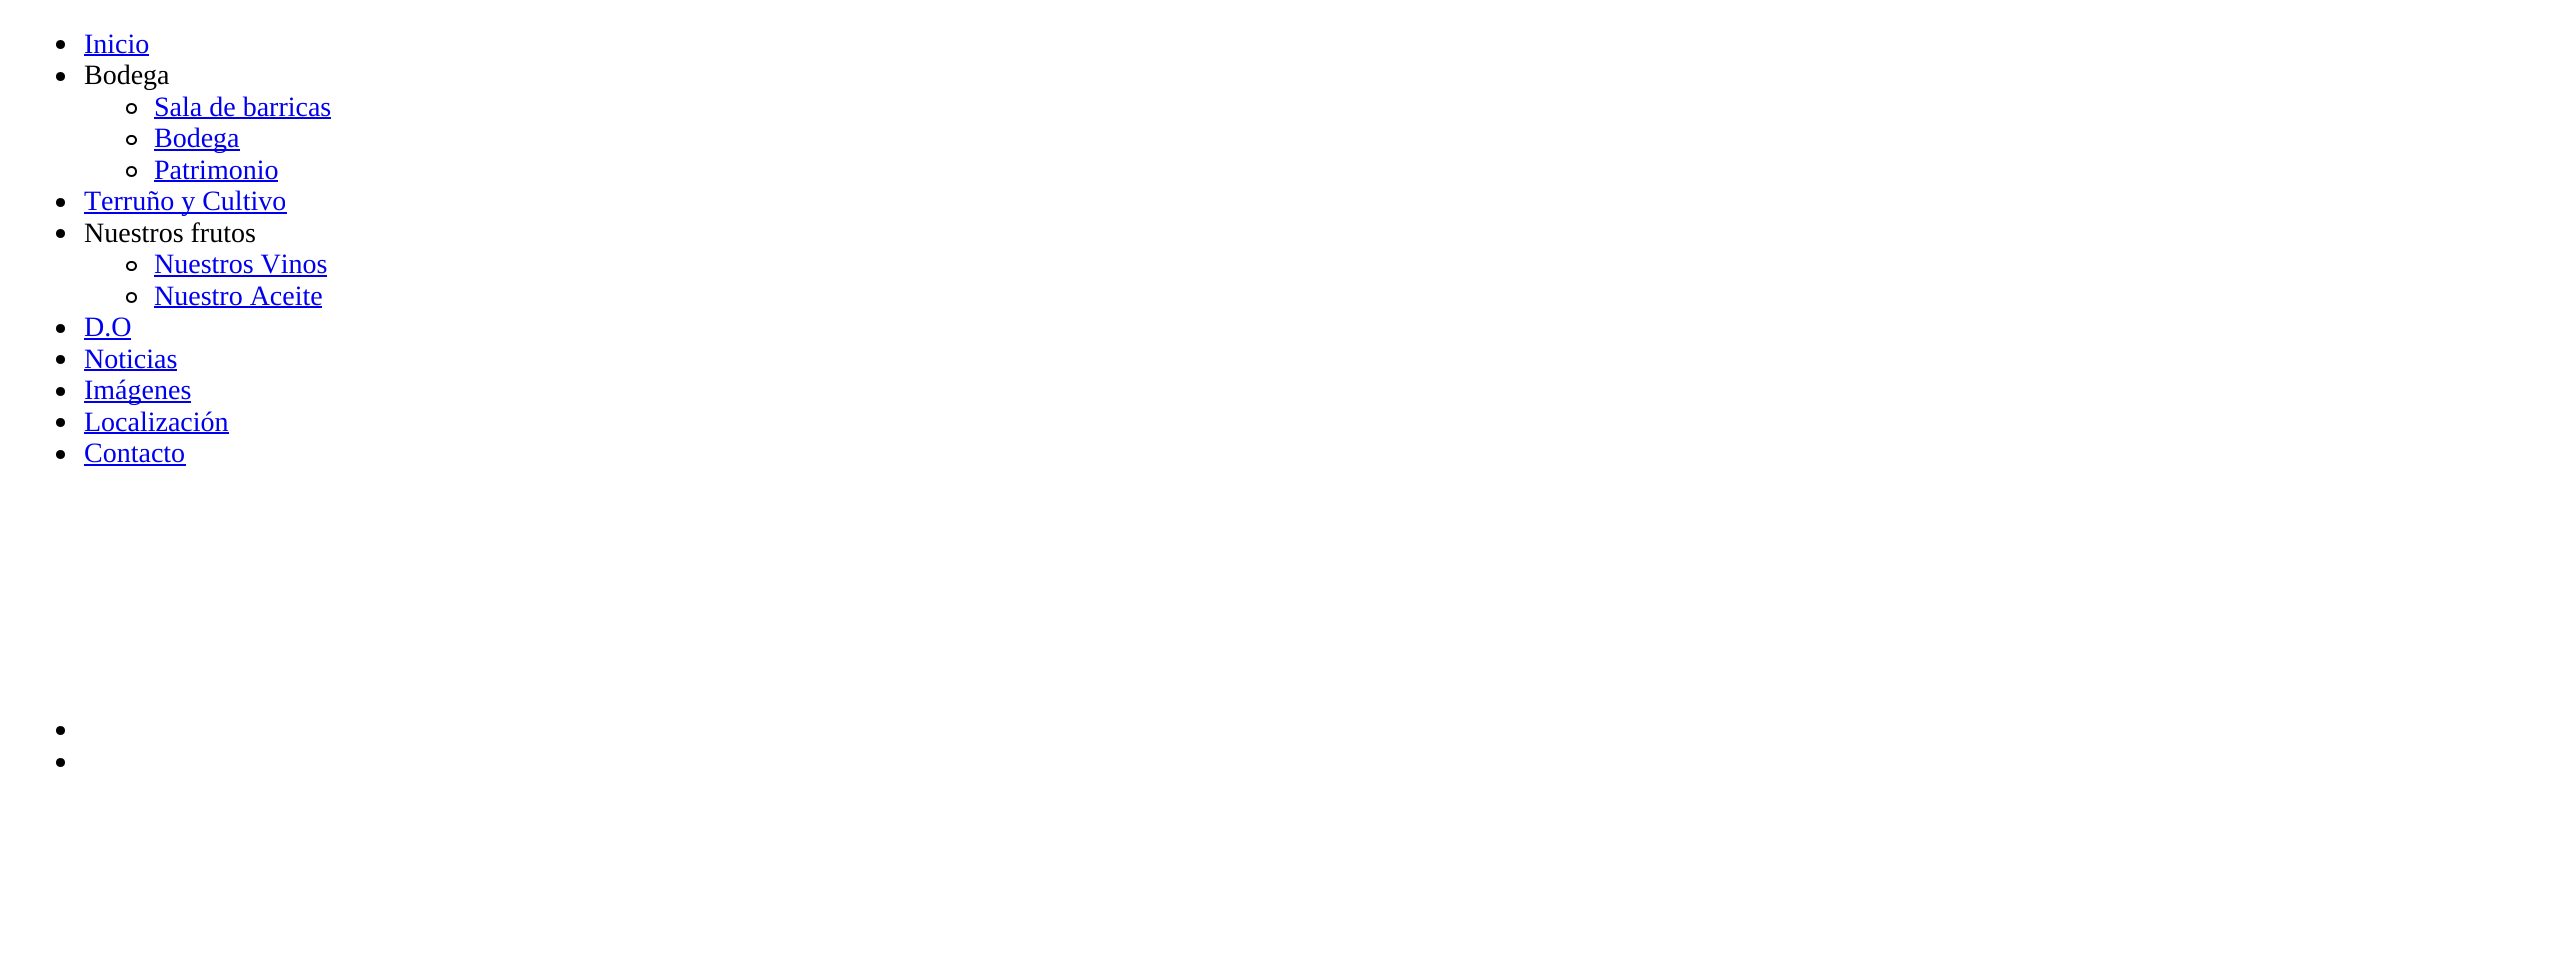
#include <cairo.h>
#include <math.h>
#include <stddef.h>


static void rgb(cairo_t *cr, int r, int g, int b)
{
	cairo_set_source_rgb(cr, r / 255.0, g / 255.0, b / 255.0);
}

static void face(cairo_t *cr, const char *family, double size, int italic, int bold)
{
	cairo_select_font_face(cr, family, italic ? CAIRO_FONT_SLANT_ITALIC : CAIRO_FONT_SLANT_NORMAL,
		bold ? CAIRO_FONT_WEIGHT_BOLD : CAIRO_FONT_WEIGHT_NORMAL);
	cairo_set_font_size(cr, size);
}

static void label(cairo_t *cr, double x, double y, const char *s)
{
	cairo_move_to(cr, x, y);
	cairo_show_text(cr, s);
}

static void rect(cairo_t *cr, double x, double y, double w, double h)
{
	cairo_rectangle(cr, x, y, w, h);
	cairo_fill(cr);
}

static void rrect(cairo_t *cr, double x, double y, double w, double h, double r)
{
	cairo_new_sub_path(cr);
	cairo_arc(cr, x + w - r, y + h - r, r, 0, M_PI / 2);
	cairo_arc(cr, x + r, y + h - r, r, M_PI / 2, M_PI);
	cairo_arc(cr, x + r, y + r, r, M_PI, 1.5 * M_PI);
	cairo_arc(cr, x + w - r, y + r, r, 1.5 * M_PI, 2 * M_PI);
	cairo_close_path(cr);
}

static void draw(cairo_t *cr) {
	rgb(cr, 255, 255, 255);
	cairo_paint(cr);
	rgb(cr, 0, 0, 0);
	cairo_arc(cr, 60.5, 44.5, 4.5, 0, 2 * M_PI);
	cairo_fill(cr);
	face(cr, "Liberation Serif", 28, 0, 0);
	rgb(cr, 0, 0, 238);
	label(cr, 84, 53, "Inicio");
	rect(cr, 84, 54, 65, 2);
	rgb(cr, 0, 0, 0);
	cairo_new_path(cr);
	cairo_arc(cr, 60.5, 76.5, 4.5, 0, 2 * M_PI);
	cairo_fill(cr);
	label(cr, 84, 84, "Bodega");
	cairo_new_path(cr);
	cairo_arc(cr, 131.5, 108.5, 4.5, 0, 2 * M_PI);
	cairo_stroke(cr);
	rgb(cr, 0, 0, 238);
	label(cr, 154, 116, "Sala de barricas");
	rect(cr, 154, 117, 177, 2);
	rrect(cr, 127, 136, 9, 8, 4);
	rgb(cr, 0, 0, 0);
	cairo_stroke(cr);
	rgb(cr, 0, 0, 238);
	rect(cr, 154, 149, 86, 2);
	label(cr, 154, 147, "Bodega");
	cairo_new_path(cr);
	cairo_arc(cr, 131.5, 171.5, 4.5, 0, 2 * M_PI);
	rgb(cr, 0, 0, 0);
	cairo_stroke(cr);
	rgb(cr, 0, 0, 238);
	label(cr, 154, 179, "Patrimonio");
	rect(cr, 154, 180, 124, 2);
	rgb(cr, 0, 0, 0);
	cairo_new_path(cr);
	cairo_arc(cr, 60.5, 202.5, 4.5, 0, 2 * M_PI);
	cairo_fill(cr);
	rgb(cr, 0, 0, 238);
	rect(cr, 84, 212, 203, 2);
	label(cr, 84, 210, "Terruño y Cultivo");
	rgb(cr, 0, 0, 0);
	cairo_new_path(cr);
	cairo_arc(cr, 60.5, 233.5, 4.5, 0, 2 * M_PI);
	cairo_fill(cr);
	label(cr, 84, 242, "Nuestros frutos");
	rrect(cr, 127, 262, 9, 8, 4);
	cairo_stroke(cr);
	rgb(cr, 0, 0, 238);
	label(cr, 154, 273, "Nuestros Vinos");
	rect(cr, 154, 275, 173, 2);
	cairo_new_path(cr);
	cairo_arc(cr, 131.5, 297.5, 4.5, 0, 2 * M_PI);
	rgb(cr, 0, 0, 0);
	cairo_stroke(cr);
	rgb(cr, 0, 0, 238);
	label(cr, 154, 305, "Nuestro Aceite");
	rect(cr, 154, 306, 168, 2);
	rgb(cr, 0, 0, 0);
	cairo_new_path(cr);
	cairo_arc(cr, 60.5, 328.5, 4.5, 0, 2 * M_PI);
	cairo_fill(cr);
	rgb(cr, 0, 0, 238);
	label(cr, 84, 336, "D.O");
	rect(cr, 84, 338, 47, 2);
	rgb(cr, 0, 0, 0);
	cairo_new_path(cr);
	cairo_arc(cr, 60.5, 359.5, 4.5, 0, 2 * M_PI);
	cairo_fill(cr);
	rgb(cr, 0, 0, 238);
	label(cr, 84, 368, "Noticias");
	rect(cr, 84, 369, 93, 2);
	rgb(cr, 0, 0, 0);
	cairo_new_path(cr);
	cairo_arc(cr, 60.5, 391.5, 4.5, 0, 2 * M_PI);
	cairo_fill(cr);
	rgb(cr, 0, 0, 238);
	rect(cr, 84, 401, 107, 2);
	label(cr, 84, 399, "Imágenes");
	rgb(cr, 0, 0, 0);
	cairo_new_path(cr);
	cairo_arc(cr, 60.5, 422.5, 4.5, 0, 2 * M_PI);
	cairo_fill(cr);
	rgb(cr, 0, 0, 238);
	label(cr, 84, 431, "Localización");
	rect(cr, 84, 432, 145, 2);
	rgb(cr, 0, 0, 0);
	cairo_new_path(cr);
	cairo_arc(cr, 60.5, 454.5, 4.5, 0, 2 * M_PI);
	cairo_fill(cr);
	rgb(cr, 0, 0, 238);
	label(cr, 84, 462, "Contacto");
	rect(cr, 84, 464, 102, 2);
	rgb(cr, 0, 0, 0);
	cairo_new_path(cr);
	cairo_arc(cr, 60.5, 730.5, 4.5, 0, 2 * M_PI);
	cairo_fill(cr);
	cairo_arc(cr, 60.5, 762.5, 4.5, 0, 2 * M_PI);
	cairo_fill(cr);
}

int main(void) {
	cairo_surface_t *surface = cairo_image_surface_create(CAIRO_FORMAT_RGB24, 2554, 975);
	cairo_t *cr = cairo_create(surface);
	cairo_font_options_t *options = cairo_font_options_create();
	cairo_font_options_set_hint_metrics(options, CAIRO_HINT_METRICS_OFF);
	cairo_font_options_set_hint_style(options, CAIRO_HINT_STYLE_NONE);
	cairo_set_font_options(cr, options);
	cairo_set_miter_limit(cr, 4);
	draw(cr);
	cairo_surface_write_to_png(surface, "render.png");
	cairo_font_options_destroy(options);
	cairo_destroy(cr);
	cairo_surface_destroy(surface);
	return 0;
}
